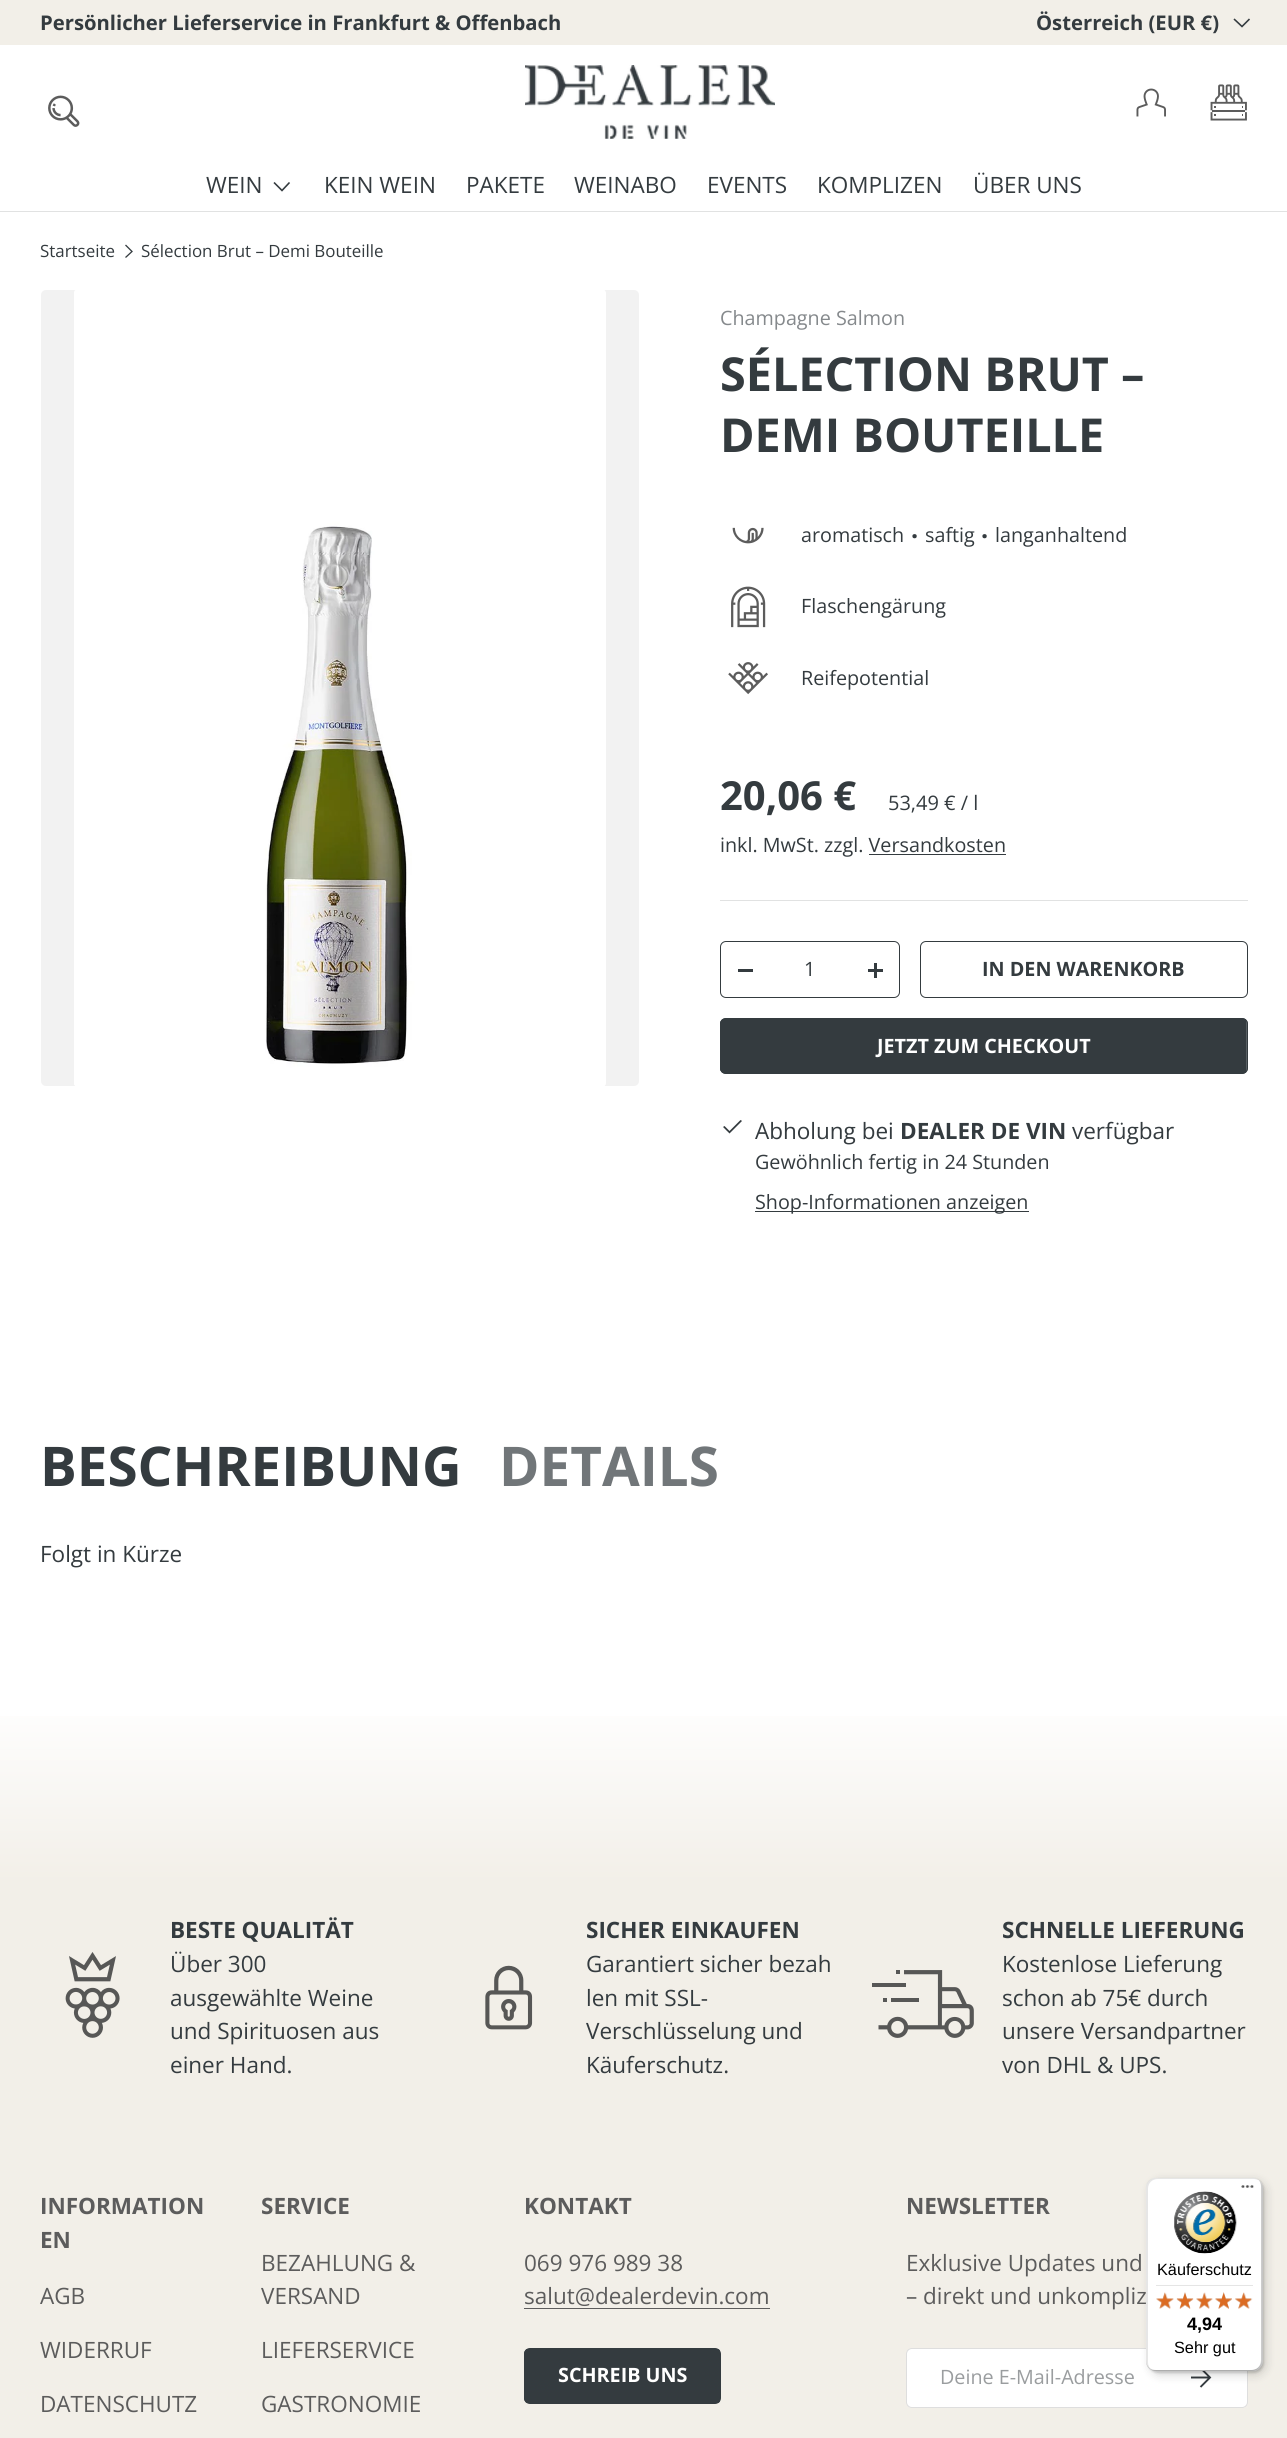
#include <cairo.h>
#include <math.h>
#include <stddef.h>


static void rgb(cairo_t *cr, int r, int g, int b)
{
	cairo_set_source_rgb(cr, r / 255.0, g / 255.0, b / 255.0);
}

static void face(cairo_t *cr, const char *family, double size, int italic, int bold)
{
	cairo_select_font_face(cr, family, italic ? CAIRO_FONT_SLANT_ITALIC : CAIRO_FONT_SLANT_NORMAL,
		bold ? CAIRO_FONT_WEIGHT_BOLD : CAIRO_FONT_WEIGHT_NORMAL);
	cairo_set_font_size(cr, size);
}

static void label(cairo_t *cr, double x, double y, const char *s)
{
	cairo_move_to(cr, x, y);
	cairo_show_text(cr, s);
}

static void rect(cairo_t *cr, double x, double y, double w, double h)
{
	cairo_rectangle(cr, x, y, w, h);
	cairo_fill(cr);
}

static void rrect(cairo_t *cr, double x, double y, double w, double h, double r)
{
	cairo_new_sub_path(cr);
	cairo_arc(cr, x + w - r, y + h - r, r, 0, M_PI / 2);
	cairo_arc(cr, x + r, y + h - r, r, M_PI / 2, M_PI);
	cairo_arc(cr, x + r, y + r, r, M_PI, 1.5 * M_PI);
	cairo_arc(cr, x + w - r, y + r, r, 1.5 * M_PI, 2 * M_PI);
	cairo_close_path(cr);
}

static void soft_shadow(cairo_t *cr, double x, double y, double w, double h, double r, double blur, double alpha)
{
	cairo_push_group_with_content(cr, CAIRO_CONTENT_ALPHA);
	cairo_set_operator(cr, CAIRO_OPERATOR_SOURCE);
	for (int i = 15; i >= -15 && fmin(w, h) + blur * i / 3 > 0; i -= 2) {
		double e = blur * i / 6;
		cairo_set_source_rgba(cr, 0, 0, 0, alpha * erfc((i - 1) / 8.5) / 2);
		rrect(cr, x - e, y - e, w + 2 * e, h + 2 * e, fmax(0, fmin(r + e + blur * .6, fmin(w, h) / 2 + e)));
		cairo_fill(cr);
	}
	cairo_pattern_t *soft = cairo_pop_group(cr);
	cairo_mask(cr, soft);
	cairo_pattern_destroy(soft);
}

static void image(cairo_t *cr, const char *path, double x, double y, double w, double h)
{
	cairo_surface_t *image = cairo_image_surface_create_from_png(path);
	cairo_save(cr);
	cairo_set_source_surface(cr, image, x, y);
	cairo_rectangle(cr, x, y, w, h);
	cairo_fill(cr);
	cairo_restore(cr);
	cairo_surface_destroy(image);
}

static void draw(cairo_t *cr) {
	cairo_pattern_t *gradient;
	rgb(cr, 255, 255, 255);
	cairo_paint(cr);
	rgb(cr, 242, 239, 232);
	rect(cr, 0, 0, 1287, 45);
	face(cr, "Open Sans", 20.25, 0, 1);
	rgb(cr, 52, 59, 63);
	label(cr, 40, 30, "Persönlicher Lieferservice in Frankfurt & Offenbach");
	label(cr, 1036, 30, "Österreich (EUR €)");
	cairo_new_path(cr);
	cairo_move_to(cr, 1249.5, 19);
	cairo_line_to(cr, 1242, 26.5);
	cairo_line_to(cr, 1234, 19);
	cairo_set_line_width(cr, 1.6);
	cairo_stroke(cr);
	rgb(cr, 225, 226, 226);
	rect(cr, 0, 211, 1287, 1);
	image(cr, "image0.png", 48, 95, 32, 32);
	image(cr, "image1.png", 525, 65, 250, 74);
	image(cr, "image2.png", 1136, 88, 30, 29);
	image(cr, "image3.png", 1210, 84, 37, 37);
	face(cr, "Open Sans", 22.5, 0, 0);
	rgb(cr, 52, 59, 63);
	label(cr, 206, 193, "WEIN");
	cairo_new_path(cr);
	cairo_move_to(cr, 289.5, 182.5);
	cairo_line_to(cr, 282, 190.5);
	cairo_line_to(cr, 274, 182.5);
	cairo_stroke(cr);
	label(cr, 324, 193, "KEIN WEIN");
	label(cr, 466, 193, "PAKETE");
	label(cr, 574, 193, "WEINABO");
	label(cr, 707, 193, "EVENTS");
	label(cr, 817, 193, "KOMPLIZEN");
	label(cr, 973, 193, "ÜBER UNS");
	face(cr, "Open Sans", 16.9, 0, 0);
	label(cr, 40, 257, "Startseite");
	cairo_new_path(cr);
	cairo_move_to(cr, 125.5, 245);
	cairo_line_to(cr, 132, 251.5);
	cairo_line_to(cr, 125.5, 257.5);
	cairo_set_line_width(cr, 1.3);
	cairo_stroke(cr);
	label(cr, 141, 257, "Sélection Brut – Demi Bouteille");
	rgb(cr, 242, 242, 242);
	rrect(cr, 41, 290, 598, 796, 5);
	cairo_fill(cr);
	image(cr, "image4.png", 74, 290, 532, 796);
	face(cr, "Open Sans", 19.75, 0, 0);
	rgb(cr, 133, 137, 140);
	label(cr, 720, 325, "Champagne Salmon");
	face(cr, "Open Sans", 46.75, 0, 1);
	rgb(cr, 52, 59, 63);
	label(cr, 720, 391, "SÉLECTION BRUT –");
	label(cr, 720, 452, "DEMI BOUTEILLE");
	image(cr, "image5.png", 732, 527, 32, 17);
	face(cr, "Open Sans", 19.75, 0, 0);
	label(cr, 801, 542, "aromatisch");
	face(cr, "Open Sans", 25, 0, 1);
	label(cr, 911, 545, "·");
	face(cr, "Open Sans", 19.75, 0, 0);
	label(cr, 925, 542, "saftig");
	face(cr, "Open Sans", 25, 0, 1);
	label(cr, 981, 545, "·");
	face(cr, "Open Sans", 19.75, 0, 0);
	label(cr, 995, 542, "langanhaltend");
	image(cr, "image6.png", 731, 586, 35, 42);
	label(cr, 801, 613, "Flaschengärung");
	image(cr, "image7.png", 728, 662, 40, 33);
	label(cr, 801, 685, "Reifepotential");
	face(cr, "Open Sans", 40, 0, 1);
	label(cr, 720, 810, "20,06 €");
	face(cr, "Open Sans", 20, 0, 0);
	label(cr, 888, 810, "53,49 € / l");
	face(cr, "Open Sans", 19.75, 0, 0);
	label(cr, 720, 852, "inkl. MwSt. zzgl. Versandkosten");
	rect(cr, 869, 854, 137, 1);
	rgb(cr, 225, 226, 226);
	rect(cr, 720, 900, 528, 1);
	rrect(cr, 720.5, 941.5, 179, 56, 5.5);
	rgb(cr, 52, 59, 63);
	cairo_set_line_width(cr, 1);
	cairo_stroke(cr);
	rect(cr, 738, 969, 15, 3);
	label(cr, 804, 976, "1");
	rect(cr, 868, 969, 15, 3);
	rect(cr, 874, 963, 3, 15);
	rrect(cr, 920.5, 941.5, 327, 56, 5.5);
	cairo_stroke(cr);
	face(cr, "Open Sans", 19.75, 0, 1);
	label(cr, 982, 976, "IN DEN WARENKORB");
	rgb(cr, 89, 96, 100);
	rrect(cr, 720, 1018, 528, 56, 6);
	cairo_fill(cr);
	cairo_save(cr);
	rrect(cr, 720, 1018, 528, 56, 6);
	cairo_clip(cr);
	gradient = cairo_pattern_create_linear(-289, 859, 1206, 1232);
	cairo_pattern_add_color_stop_rgba(gradient, 0.6, 0.349, 0.376, 0.392, 1);
	cairo_pattern_add_color_stop_rgba(gradient, 0.6, 0.204, 0.231, 0.247, 1);
	cairo_pattern_add_color_stop_rgba(gradient, 1, 0.204, 0.231, 0.247, 1);
	cairo_set_source(cr, gradient);
	cairo_pattern_destroy(gradient);
	rect(cr, 720, 1019, 526, 54);
	cairo_restore(cr);
	rrect(cr, 720.5, 1018.5, 527, 55, 5.5);
	rgb(cr, 52, 59, 63);
	cairo_stroke(cr);
	rgb(cr, 255, 255, 255);
	label(cr, 877, 1053, "JETZT ZUM CHECKOUT");
	rgb(cr, 52, 59, 63);
	cairo_new_path(cr);
	cairo_move_to(cr, 740.5, 1120);
	cairo_line_to(cr, 742, 1121);
	cairo_line_to(cr, 729.5, 1133.5);
	cairo_line_to(cr, 723, 1127);
	cairo_line_to(cr, 724.5, 1126);
	cairo_line_to(cr, 729.5, 1131);
	cairo_close_path(cr);
	cairo_fill(cr);
	face(cr, "Open Sans", 22.5, 0, 0);
	label(cr, 755, 1139, "Abholung bei");
	face(cr, "Open Sans", 22.5, 0, 1);
	label(cr, 900, 1139, "DEALER DE VIN");
	face(cr, "Open Sans", 22.5, 0, 0);
	label(cr, 1072, 1139, "verfügbar");
	face(cr, "Open Sans", 19.75, 0, 0);
	label(cr, 755, 1169, "Gewöhnlich fertig in 24 Stunden");
	rect(cr, 755, 1211, 274, 1);
	label(cr, 755, 1209, "Shop-Informationen anzeigen");
	face(cr, "Open Sans", 54.75, 0, 1);
	label(cr, 40, 1486, "BESCHREIBUNG");
	rgb(cr, 113, 118, 121);
	label(cr, 499, 1486, "DETAILS");
	face(cr, "Open Sans", 22.5, 0, 0);
	rgb(cr, 52, 59, 63);
	label(cr, 40, 1562, "Folgt in Kürze");
	gradient = cairo_pattern_create_linear(644, 1696, 644, 1884);
	cairo_pattern_add_color_stop_rgba(gradient, 0, 1, 1, 1, 1);
	cairo_pattern_add_color_stop_rgba(gradient, 1, 0.949, 0.937, 0.91, 1);
	cairo_set_source(cr, gradient);
	cairo_pattern_destroy(gradient);
	rect(cr, 0, 1716, 1287, 168);
	rgb(cr, 242, 239, 232);
	rect(cr, 0, 1884, 1287, 554);
	image(cr, "image8.png", 65, 1952, 55, 86);
	face(cr, "Open Sans", 22.5, 0, 1);
	rgb(cr, 52, 59, 63);
	label(cr, 170, 1938, "BESTE QUALITÄT");
	face(cr, "Open Sans", 22.5, 0, 0);
	label(cr, 170, 1972, "Über 300");
	label(cr, 170, 2006, "ausgewählte Weine");
	label(cr, 170, 2039, "und Spirituosen aus");
	label(cr, 170, 2073, "einer Hand.");
	image(cr, "image9.png", 485, 1965, 48, 65);
	face(cr, "Open Sans", 22.5, 0, 1);
	label(cr, 586, 1938, "SICHER EINKAUFEN");
	face(cr, "Open Sans", 22.5, 0, 0);
	label(cr, 586, 1972, "Garantiert sicher bezah");
	label(cr, 586, 2006, "len mit SSL-");
	label(cr, 586, 2039, "Verschlüsselung und");
	label(cr, 586, 2073, "Käuferschutz.");
	image(cr, "image10.png", 872, 1970, 102, 68);
	face(cr, "Open Sans", 22.5, 0, 1);
	label(cr, 1002, 1938, "SCHNELLE LIEFERUNG");
	face(cr, "Open Sans", 22.5, 0, 0);
	label(cr, 1002, 1972, "Kostenlose Lieferung");
	label(cr, 1002, 2006, "schon ab 75€ durch");
	label(cr, 1002, 2039, "unsere Versandpartner");
	label(cr, 1002, 2073, "von DHL & UPS.");
	face(cr, "Open Sans", 22.5, 0, 1);
	rgb(cr, 92, 92, 92);
	label(cr, 40, 2214, "INFORMATION");
	label(cr, 40, 2248, "EN");
	face(cr, "Open Sans", 22.5, 0, 0);
	label(cr, 40, 2304, "AGB");
	label(cr, 40, 2358, "WIDERRUF");
	label(cr, 40, 2412, "DATENSCHUTZ");
	face(cr, "Open Sans", 22.5, 0, 1);
	label(cr, 261, 2214, "SERVICE");
	face(cr, "Open Sans", 22.5, 0, 0);
	label(cr, 261, 2271, "BEZAHLUNG &");
	label(cr, 261, 2304, "VERSAND");
	label(cr, 261, 2358, "LIEFERSERVICE");
	label(cr, 261, 2412, "GASTRONOMIE");
	face(cr, "Open Sans", 22.5, 0, 1);
	label(cr, 524, 2214, "KONTAKT");
	face(cr, "Open Sans", 22.5, 0, 0);
	label(cr, 524, 2271, "069 976 989 38");
	label(cr, 524, 2304, "salut@dealerdevin.com");
	rect(cr, 524, 2308, 246, 1);
	cairo_save(cr);
	rrect(cr, 524, 2348, 197, 56, 6);
	cairo_clip(cr);
	gradient = cairo_pattern_create_linear(146, 2305, 709, 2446);
	cairo_pattern_add_color_stop_rgba(gradient, 0.6, 0.349, 0.376, 0.392, 1);
	cairo_pattern_add_color_stop_rgba(gradient, 0.6, 0.204, 0.231, 0.247, 1);
	cairo_pattern_add_color_stop_rgba(gradient, 1, 0.204, 0.231, 0.247, 1);
	cairo_set_source(cr, gradient);
	cairo_pattern_destroy(gradient);
	rect(cr, 524, 2349, 196, 54);
	cairo_restore(cr);
	rrect(cr, 524.5, 2348.5, 196, 55, 5.5);
	rgb(cr, 52, 59, 63);
	cairo_stroke(cr);
	face(cr, "Open Sans", 19.75, 0, 1);
	rgb(cr, 255, 255, 255);
	label(cr, 558, 2382, "SCHREIB UNS");
	face(cr, "Open Sans", 22.5, 0, 1);
	rgb(cr, 92, 92, 92);
	label(cr, 906, 2214, "NEWSLETTER");
	face(cr, "Open Sans", 22.5, 0, 0);
	label(cr, 906, 2271, "Exklusive Updates und");
	label(cr, 906, 2304, "– direkt und unkompliz");
	rgb(cr, 255, 255, 255);
	rrect(cr, 906, 2348, 342, 60, 6);
	cairo_fill(cr);
	rrect(cr, 906.5, 2348.5, 341, 59, 5.5);
	cairo_set_source_rgba(cr, 0.361, 0.361, 0.361, 0.2);
	cairo_stroke(cr);
	face(cr, "Open Sans", 19.75, 0, 0);
	rgb(cr, 154, 157, 159);
	label(cr, 940, 2384, "Deine E-Mail-Adresse");
	cairo_new_path(cr);
	cairo_move_to(cr, 1191, 2377.5);
	cairo_line_to(cr, 1209, 2377.5);
	cairo_move_to(cr, 1200.5, 2368);
	cairo_line_to(cr, 1210, 2377.5);
	cairo_line_to(cr, 1200.5, 2387);
	rgb(cr, 52, 59, 63);
	cairo_set_line_width(cr, 1.9);
	cairo_stroke(cr);
	rgb(cr, 0, 0, 0);
	soft_shadow(cr, 1150, 2181, 116, 194, 10, 5, 0.15);
	soft_shadow(cr, 1148, 2179, 116, 194, 10, 1, 0.15);
	rgb(cr, 255, 255, 255);
	rrect(cr, 1146, 2178, 117, 193, 10);
	cairo_fill(cr);
	cairo_set_source_rgba(cr, 0, 0, 0, 0.1);
	cairo_new_path(cr);
	cairo_move_to(cr, 1158, 2179);
	cairo_line_to(cr, 1254, 2179);
	cairo_curve_to(cr, 1256, 2179, 1259, 2180, 1261, 2182);
	cairo_curve_to(cr, 1259, 2179, 1256, 2178, 1253, 2178);
	cairo_line_to(cr, 1156, 2178);
	cairo_curve_to(cr, 1150, 2178, 1146, 2182, 1146, 2188);
	cairo_line_to(cr, 1146, 2361);
	cairo_curve_to(cr, 1146, 2365, 1148, 2368, 1152, 2370);
	cairo_curve_to(cr, 1149, 2368, 1148, 2365, 1148, 2362);
	cairo_line_to(cr, 1148, 2189);
	cairo_curve_to(cr, 1148, 2183, 1152, 2179, 1158, 2179);
	cairo_close_path(cr);
	cairo_fill(cr);
	cairo_set_source_rgba(cr, 0, 0, 0, 0.2);
	cairo_new_path(cr);
	cairo_move_to(cr, 1150, 2369);
	cairo_curve_to(cr, 1151, 2370, 1154, 2371, 1156, 2371);
	cairo_line_to(cr, 1253, 2371);
	cairo_curve_to(cr, 1259, 2371, 1263, 2367, 1263, 2361);
	cairo_line_to(cr, 1263, 2188);
	cairo_curve_to(cr, 1263, 2185, 1261, 2182, 1259, 2180);
	cairo_curve_to(cr, 1260, 2182, 1261, 2184, 1261, 2186);
	cairo_line_to(cr, 1261, 2360);
	cairo_curve_to(cr, 1261, 2366, 1257, 2370, 1251, 2370);
	cairo_line_to(cr, 1155, 2370);
	cairo_curve_to(cr, 1153, 2370, 1151, 2370, 1150, 2369);
	cairo_close_path(cr);
	cairo_fill(cr);
	cairo_set_source_rgba(cr, 0.196, 0.196, 0.196, 0.2);
	cairo_new_path(cr);
	cairo_move_to(cr, 1146, 2360);
	cairo_line_to(cr, 1146, 2361);
	cairo_curve_to(cr, 1146, 2367, 1150, 2371, 1156, 2371);
	cairo_line_to(cr, 1253, 2371);
	cairo_curve_to(cr, 1259, 2371, 1263, 2367, 1263, 2361);
	cairo_line_to(cr, 1263, 2188);
	cairo_curve_to(cr, 1263, 2185, 1262, 2182, 1260, 2180);
	cairo_curve_to(cr, 1261, 2182, 1262, 2184, 1262, 2187);
	cairo_line_to(cr, 1262, 2360);
	cairo_curve_to(cr, 1262, 2366, 1257, 2370, 1252, 2370);
	cairo_line_to(cr, 1156, 2370);
	cairo_curve_to(cr, 1150, 2370, 1146, 2366, 1146, 2360);
	cairo_close_path(cr);
	cairo_fill(cr);
	cairo_set_source_rgba(cr, 1, 1, 1, 0.3);
	cairo_new_path(cr);
	cairo_move_to(cr, 1252, 2371);
	cairo_line_to(cr, 1253, 2371);
	cairo_curve_to(cr, 1259, 2371, 1263, 2367, 1263, 2361);
	cairo_line_to(cr, 1263, 2188);
	cairo_curve_to(cr, 1263, 2185, 1262, 2182, 1260, 2180);
	cairo_curve_to(cr, 1261, 2182, 1262, 2184, 1262, 2187);
	cairo_line_to(cr, 1262, 2361);
	cairo_curve_to(cr, 1262, 2366, 1257, 2371, 1252, 2371);
	cairo_close_path(cr);
	cairo_fill(cr);
	image(cr, "image11.png", 1241, 2185, 13, 3);
	image(cr, "image12.png", 1174, 2191, 63, 63);
	face(cr, "Liberation Sans", 16.25, 0, 0);
	rgb(cr, 0, 0, 0);
	label(cr, 1157, 2275, "Käuferschutz");
	rgb(cr, 229, 229, 229);
	rect(cr, 1156, 2285, 97, 1);
	image(cr, "image13.png", 1156, 2293, 18, 15);
	image(cr, "image14.png", 1177, 2292, 16, 17);
	image(cr, "image15.png", 1196, 2293, 17, 16);
	image(cr, "image16.png", 1215, 2292, 17, 17);
	image(cr, "image17.png", 1235, 2293, 18, 16);
	image(cr, "image18.png", 1156, 2292, 18, 17);
	image(cr, "image19.png", 1176, 2292, 18, 17);
	image(cr, "image20.png", 1196, 2292, 17, 17);
	image(cr, "image21.png", 1215, 2292, 17, 17);
	image(cr, "image22.png", 1235, 2292, 17, 17);
	face(cr, "Liberation Sans", 18, 0, 1);
	rgb(cr, 0, 0, 0);
	label(cr, 1187, 2330, "4,94");
	face(cr, "Liberation Sans", 16.25, 0, 0);
	label(cr, 1174, 2353, "Sehr gut");
}

int main(void) {
	cairo_surface_t *surface = cairo_image_surface_create(CAIRO_FORMAT_RGB24, 1287, 2438);
	cairo_t *cr = cairo_create(surface);
	cairo_font_options_t *options = cairo_font_options_create();
	cairo_font_options_set_hint_metrics(options, CAIRO_HINT_METRICS_OFF);
	cairo_font_options_set_hint_style(options, CAIRO_HINT_STYLE_NONE);
	cairo_set_font_options(cr, options);
	cairo_set_miter_limit(cr, 4);
	draw(cr);
	cairo_surface_write_to_png(surface, "render.png");
	cairo_font_options_destroy(options);
	cairo_destroy(cr);
	cairo_surface_destroy(surface);
	return 0;
}
